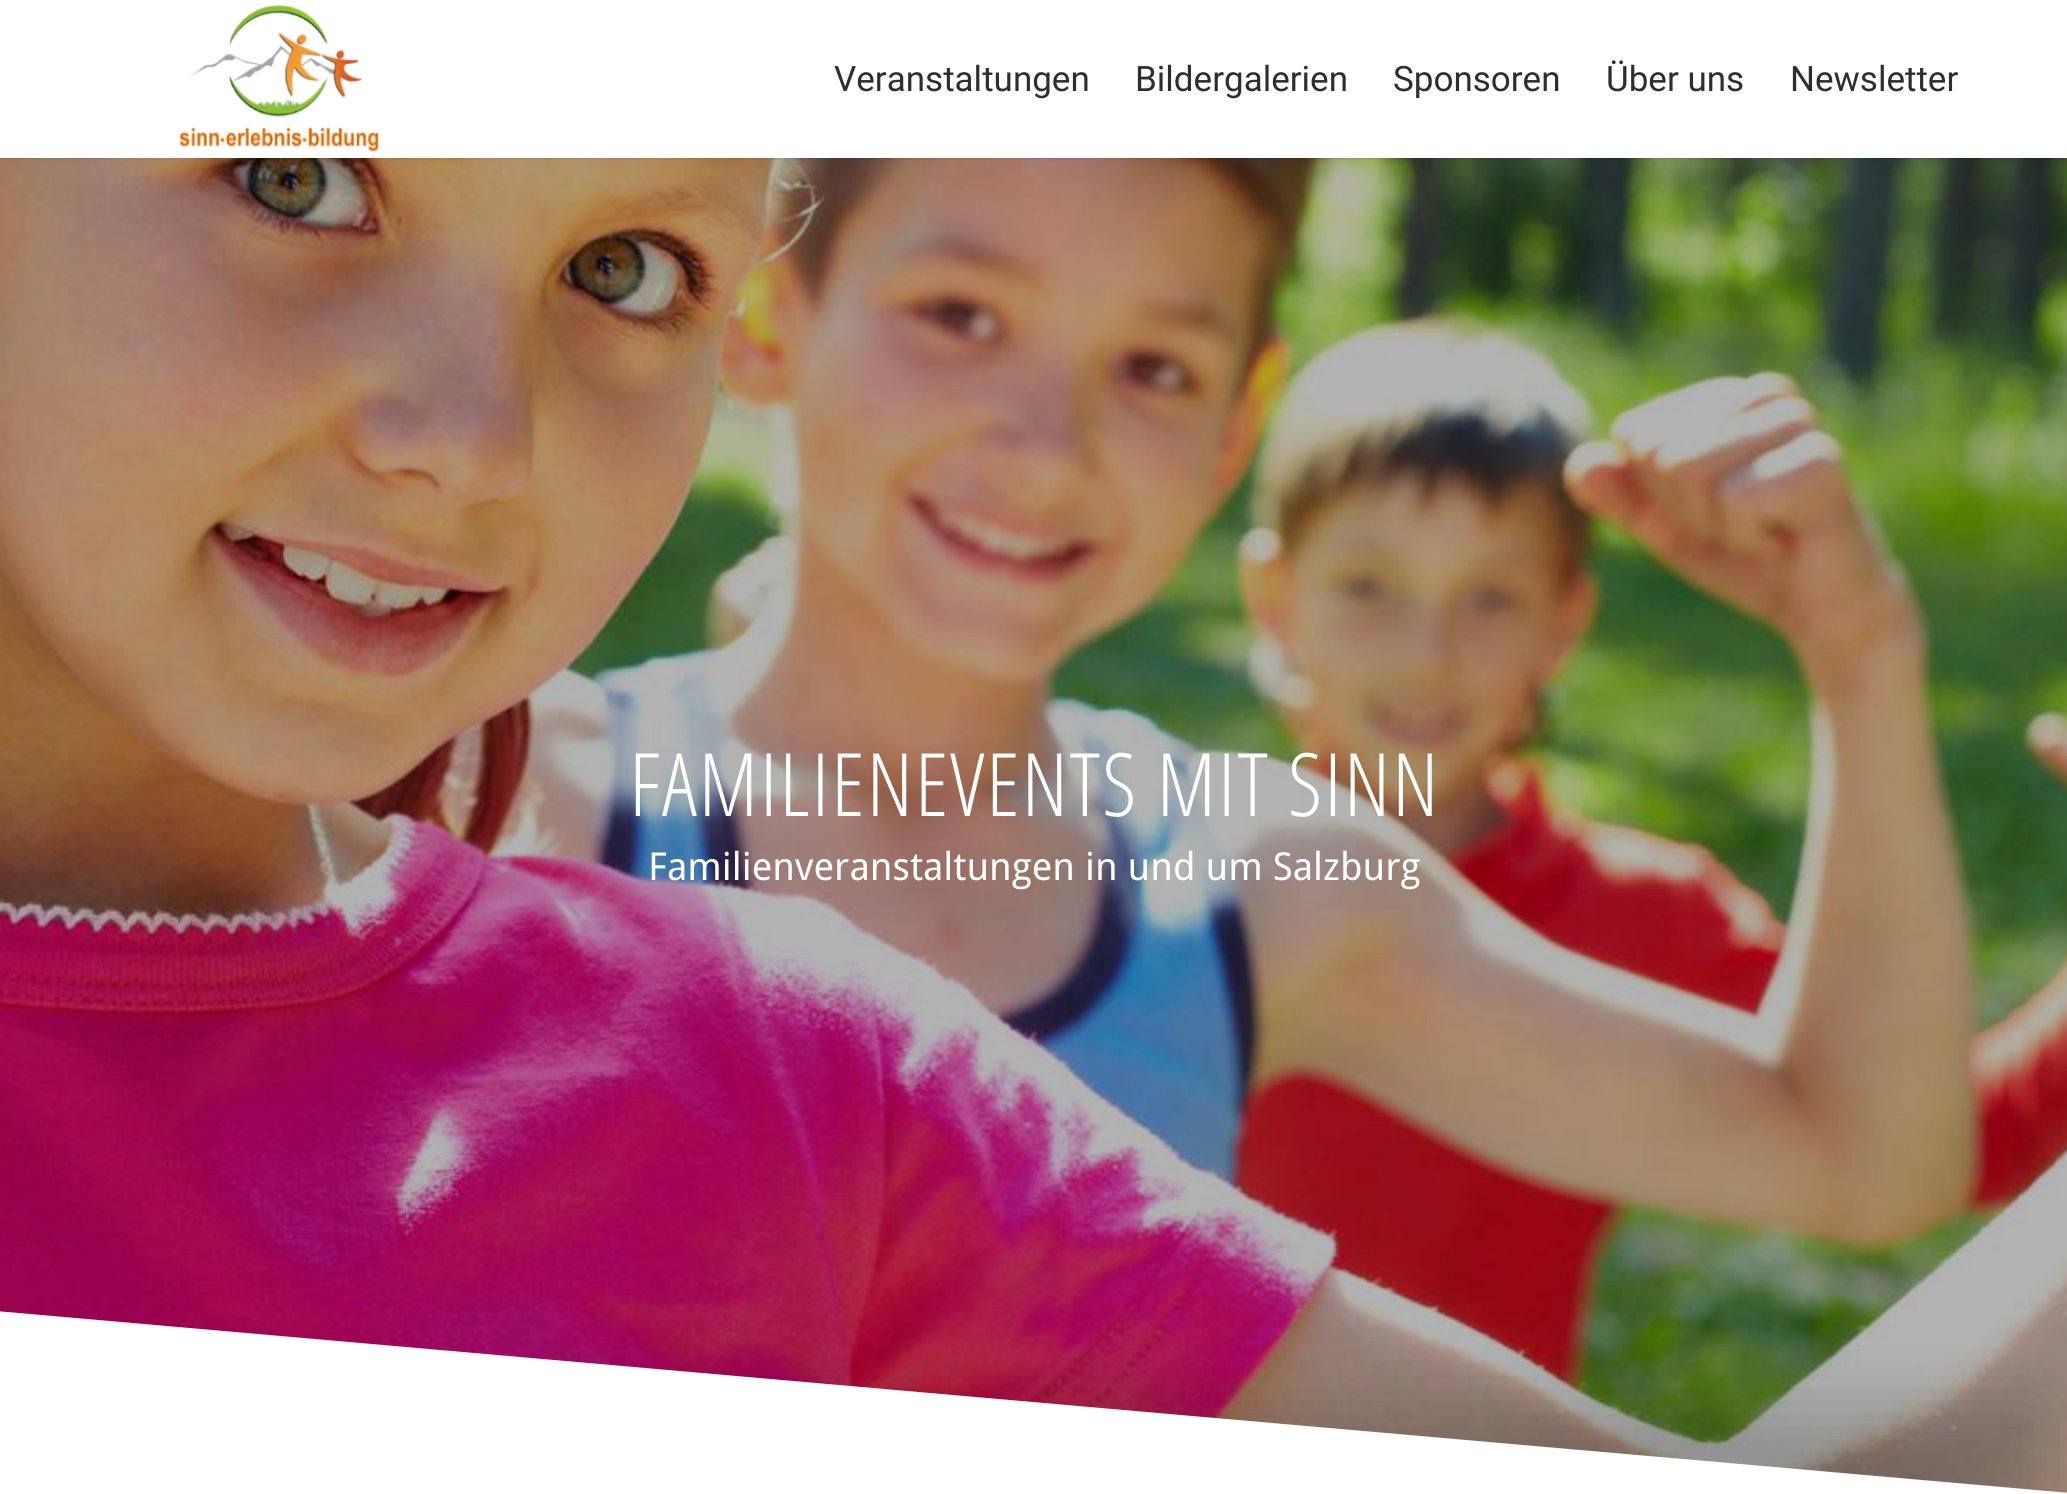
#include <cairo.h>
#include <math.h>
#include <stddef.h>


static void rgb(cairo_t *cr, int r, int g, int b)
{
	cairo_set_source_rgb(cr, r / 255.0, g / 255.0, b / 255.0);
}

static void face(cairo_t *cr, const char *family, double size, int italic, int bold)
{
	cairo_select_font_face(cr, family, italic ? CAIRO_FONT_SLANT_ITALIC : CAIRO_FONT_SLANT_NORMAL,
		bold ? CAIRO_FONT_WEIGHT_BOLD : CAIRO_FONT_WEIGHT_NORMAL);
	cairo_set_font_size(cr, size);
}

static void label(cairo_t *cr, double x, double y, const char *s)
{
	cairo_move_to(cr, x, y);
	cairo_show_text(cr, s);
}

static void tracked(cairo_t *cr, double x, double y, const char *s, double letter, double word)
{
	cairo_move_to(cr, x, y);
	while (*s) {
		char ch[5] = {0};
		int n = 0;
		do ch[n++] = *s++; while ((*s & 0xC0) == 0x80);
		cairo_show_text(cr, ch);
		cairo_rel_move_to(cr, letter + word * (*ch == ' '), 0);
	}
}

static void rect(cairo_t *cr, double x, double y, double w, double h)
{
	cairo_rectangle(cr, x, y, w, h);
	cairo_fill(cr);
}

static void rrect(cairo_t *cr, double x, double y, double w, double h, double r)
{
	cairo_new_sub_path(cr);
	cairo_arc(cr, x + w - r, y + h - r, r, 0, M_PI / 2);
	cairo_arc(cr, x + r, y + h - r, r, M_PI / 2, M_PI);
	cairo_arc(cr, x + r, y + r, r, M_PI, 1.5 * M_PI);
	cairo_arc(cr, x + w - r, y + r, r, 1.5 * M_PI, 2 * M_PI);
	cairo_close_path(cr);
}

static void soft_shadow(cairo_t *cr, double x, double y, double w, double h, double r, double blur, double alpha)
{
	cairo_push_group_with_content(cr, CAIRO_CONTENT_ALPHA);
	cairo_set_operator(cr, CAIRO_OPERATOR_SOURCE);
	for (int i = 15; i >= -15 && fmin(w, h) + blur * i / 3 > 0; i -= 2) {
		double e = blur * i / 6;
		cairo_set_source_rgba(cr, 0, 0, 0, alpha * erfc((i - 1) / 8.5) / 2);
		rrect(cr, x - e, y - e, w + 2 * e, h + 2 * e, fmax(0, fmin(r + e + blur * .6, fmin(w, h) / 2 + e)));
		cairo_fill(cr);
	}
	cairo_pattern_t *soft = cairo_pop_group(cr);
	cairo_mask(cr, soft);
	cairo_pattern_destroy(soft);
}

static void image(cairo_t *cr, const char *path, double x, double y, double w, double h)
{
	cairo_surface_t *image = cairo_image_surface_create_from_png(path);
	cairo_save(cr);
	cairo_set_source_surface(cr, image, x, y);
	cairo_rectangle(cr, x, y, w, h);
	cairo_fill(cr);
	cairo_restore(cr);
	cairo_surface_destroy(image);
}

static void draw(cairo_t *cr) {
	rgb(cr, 255, 255, 255);
	cairo_paint(cr);
	image(cr, "image1.png", 0, 158, 2067, 1335);
	rgb(cr, 0, 0, 0);
	soft_shadow(cr, -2, -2, 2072, 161, 0, 2, 0.1);
	rgb(cr, 255, 255, 255);
	rect(cr, 0, 0, 2067, 158);
	image(cr, "image0.png", 179, 5, 200, 147);
	face(cr, "Roboto", 35, 0, 0);
	rgb(cr, 46, 46, 46);
	label(cr, 834, 91, "Veranstaltungen");
	label(cr, 1135, 91, "Bildergalerien");
	label(cr, 1393, 91, "Sponsoren");
	label(cr, 1606, 91, "Über uns");
	label(cr, 1790, 91, "Newsletter");
	face(cr, "Open Sans Condensed Light", 87.5, 0, 0);
	rgb(cr, 255, 255, 255);
	tracked(cr, 629, 816, "FAMILIENEVENTS MIT SINN", 1.75, 0);
	face(cr, "Droid Sans", 38.5, 0, 0);
	label(cr, 648, 880, "Familienveranstaltungen in und um Salzburg");
	cairo_save(cr);
	cairo_set_fill_rule(cr, CAIRO_FILL_RULE_EVEN_ODD);
	cairo_new_path(cr);
	cairo_move_to(cr, 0, 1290);
	cairo_line_to(cr, 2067, 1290);
	cairo_line_to(cr, 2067, 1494);
	cairo_line_to(cr, 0, 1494);
	cairo_close_path(cr);
	cairo_move_to(cr, -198, 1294.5);
	cairo_line_to(cr, 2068.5, 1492.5);
	cairo_line_to(cr, 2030.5, 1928.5);
	cairo_line_to(cr, -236.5, 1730.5);
	cairo_close_path(cr);
	cairo_clip(cr);
	rgb(cr, 0, 0, 0);
	soft_shadow(cr, -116, 1407, 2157, 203, 0, 38.5, 0.2);
	cairo_restore(cr);
	cairo_save(cr);
	cairo_rectangle(cr, 0, 1055, 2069, 438);
	cairo_clip(cr);
	cairo_new_path(cr);
	cairo_move_to(cr, -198, 1294);
	cairo_line_to(cr, 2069, 1493);
	cairo_line_to(cr, 2030, 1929);
	cairo_line_to(cr, -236, 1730);
	cairo_close_path(cr);
	cairo_fill(cr);
	cairo_restore(cr);
}

int main(void) {
	cairo_surface_t *surface = cairo_image_surface_create(CAIRO_FORMAT_RGB24, 2067, 1494);
	cairo_t *cr = cairo_create(surface);
	cairo_font_options_t *options = cairo_font_options_create();
	cairo_font_options_set_hint_metrics(options, CAIRO_HINT_METRICS_OFF);
	cairo_font_options_set_hint_style(options, CAIRO_HINT_STYLE_NONE);
	cairo_set_font_options(cr, options);
	cairo_set_miter_limit(cr, 4);
	draw(cr);
	cairo_surface_write_to_png(surface, "render.png");
	cairo_font_options_destroy(options);
	cairo_destroy(cr);
	cairo_surface_destroy(surface);
	return 0;
}
